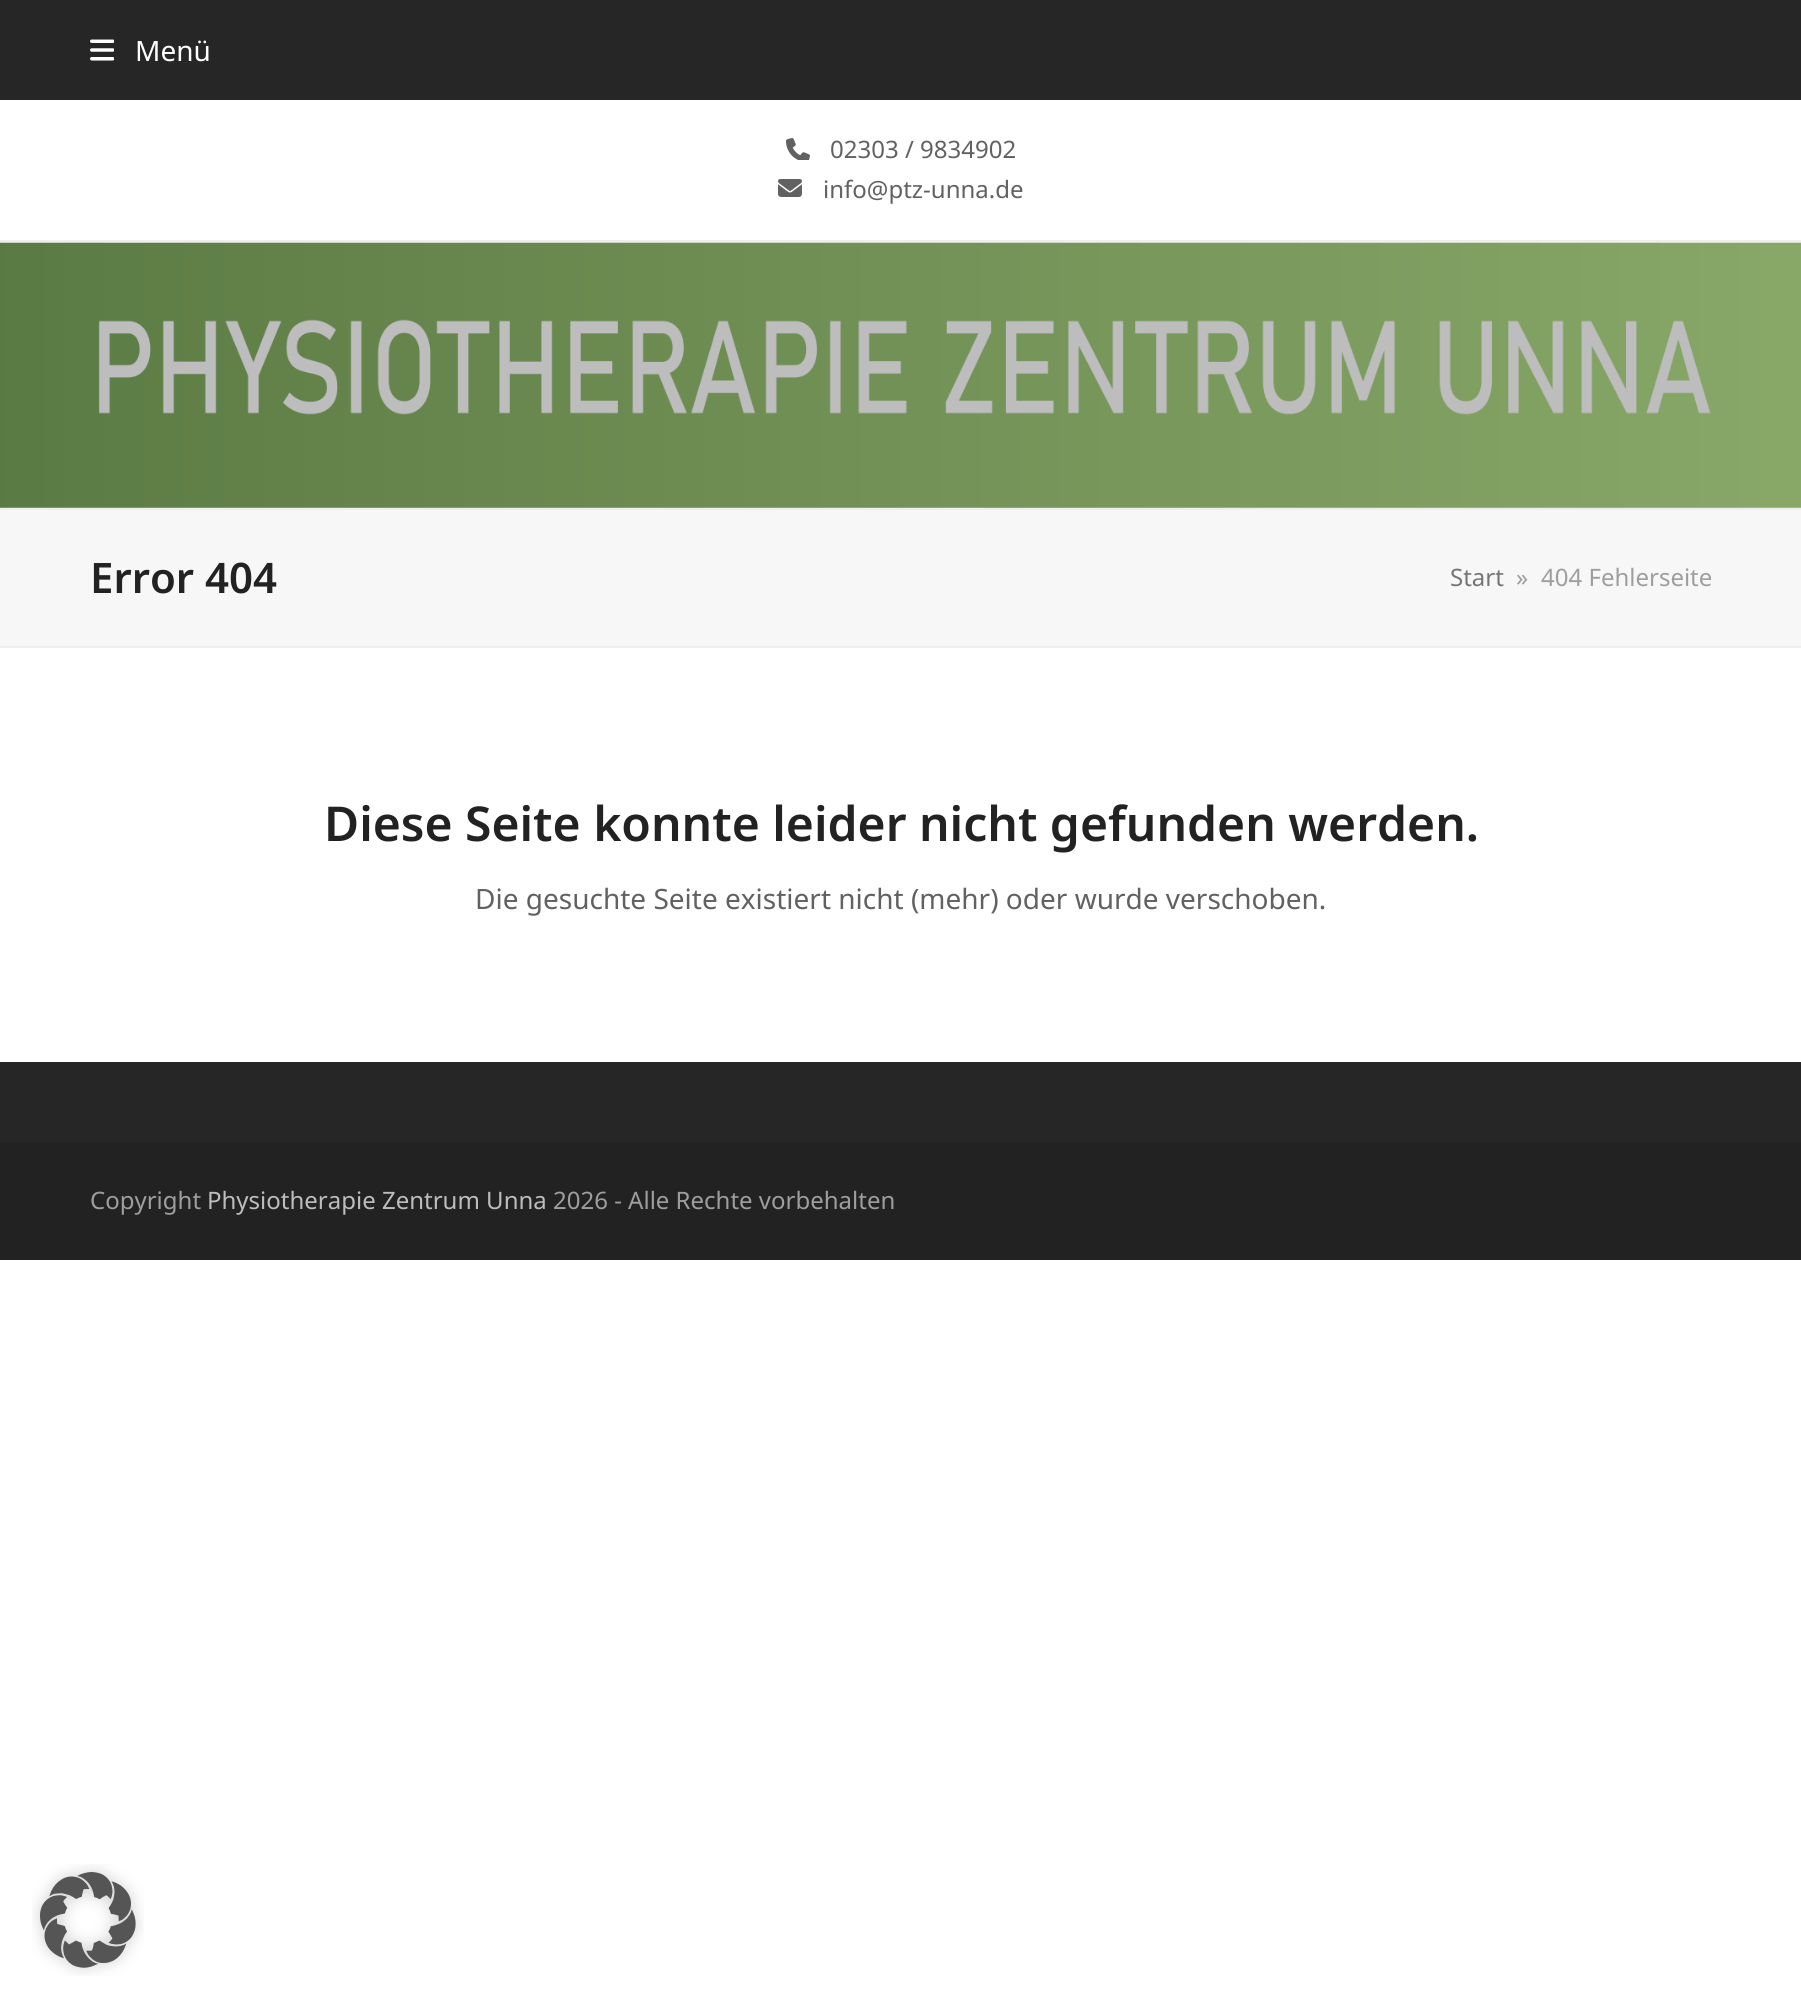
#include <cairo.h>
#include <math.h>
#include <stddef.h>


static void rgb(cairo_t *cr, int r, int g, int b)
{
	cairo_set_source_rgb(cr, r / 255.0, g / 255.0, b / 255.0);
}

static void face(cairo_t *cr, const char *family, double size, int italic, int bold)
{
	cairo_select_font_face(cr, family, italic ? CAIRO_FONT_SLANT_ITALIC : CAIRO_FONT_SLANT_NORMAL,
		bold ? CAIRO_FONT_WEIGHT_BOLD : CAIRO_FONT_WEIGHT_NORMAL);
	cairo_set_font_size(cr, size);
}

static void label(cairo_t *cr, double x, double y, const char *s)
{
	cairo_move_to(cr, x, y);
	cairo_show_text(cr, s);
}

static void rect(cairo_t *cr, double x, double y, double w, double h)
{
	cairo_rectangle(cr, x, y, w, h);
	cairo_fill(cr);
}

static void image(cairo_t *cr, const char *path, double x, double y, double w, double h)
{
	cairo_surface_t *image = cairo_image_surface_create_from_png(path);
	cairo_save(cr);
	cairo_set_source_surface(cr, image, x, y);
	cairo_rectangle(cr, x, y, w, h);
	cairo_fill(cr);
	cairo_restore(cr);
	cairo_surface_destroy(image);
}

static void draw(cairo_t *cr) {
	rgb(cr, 255, 255, 255);
	cairo_paint(cr);
	rgb(cr, 38, 38, 38);
	rect(cr, 0, 0, 1801, 100);
	image(cr, "image0.png", 90, 39, 24, 22);
	face(cr, "Noto Sans", 28, 0, 0);
	rgb(cr, 255, 255, 255);
	label(cr, 135, 61, "Menü");
	rgb(cr, 238, 238, 238);
	rect(cr, 0, 240, 1801, 2);
	image(cr, "image1.png", 786, 138, 24, 22);
	face(cr, "Noto Sans", 24, 0, 0);
	rgb(cr, 97, 97, 97);
	label(cr, 830, 158, "02303 / 9834902");
	image(cr, "image2.png", 778, 179, 24, 18);
	label(cr, 823, 198, "info@ptz-unna.de");
	image(cr, "image3.png", 0, 242, 1801, 266);
	image(cr, "image4.png", 98, 319, 1613, 96);
	rgb(cr, 247, 247, 247);
	rect(cr, 0, 510, 1801, 136);
	rgb(cr, 238, 238, 238);
	rect(cr, 0, 508, 1801, 2);
	rect(cr, 0, 646, 1801, 2);
	face(cr, "Noto Sans SemiBold", 42, 0, 0);
	rgb(cr, 34, 34, 34);
	label(cr, 90, 593, "Error 404");
	face(cr, "Noto Sans", 24, 0, 0);
	rgb(cr, 117, 117, 117);
	label(cr, 1450, 586, "Start");
	rgb(cr, 158, 158, 158);
	label(cr, 1516, 586, "»");
	label(cr, 1541, 586, "404 Fehlerseite");
	face(cr, "Noto Sans SemiBold", 48, 0, 0);
	rgb(cr, 34, 34, 34);
	label(cr, 324, 841, "Diese Seite konnte leider nicht gefunden werden.");
	face(cr, "Noto Sans", 28, 0, 0);
	rgb(cr, 97, 97, 97);
	label(cr, 475, 909, "Die gesuchte Seite existiert nicht (mehr) oder wurde verschoben.");
	rgb(cr, 38, 38, 38);
	rect(cr, 0, 1062, 1801, 80);
	rgb(cr, 34, 34, 34);
	rect(cr, 0, 1142, 1801, 118);
	face(cr, "Noto Sans", 24, 0, 0);
	rgb(cr, 158, 158, 158);
	label(cr, 90, 1209, "Copyright");
	rgb(cr, 189, 189, 189);
	label(cr, 207, 1209, "Physiotherapie Zentrum Unna");
	rgb(cr, 158, 158, 158);
	label(cr, 553, 1209, "2026 - Alle Rechte vorbehalten");
	image(cr, "image5.png", 32, 1864, 112, 112);
}

int main(void) {
	cairo_surface_t *surface = cairo_image_surface_create(CAIRO_FORMAT_RGB24, 1801, 2008);
	cairo_t *cr = cairo_create(surface);
	cairo_font_options_t *options = cairo_font_options_create();
	cairo_font_options_set_hint_metrics(options, CAIRO_HINT_METRICS_OFF);
	cairo_font_options_set_hint_style(options, CAIRO_HINT_STYLE_NONE);
	cairo_set_font_options(cr, options);
	cairo_set_miter_limit(cr, 4);
	draw(cr);
	cairo_surface_write_to_png(surface, "render.png");
	cairo_font_options_destroy(options);
	cairo_destroy(cr);
	cairo_surface_destroy(surface);
	return 0;
}
